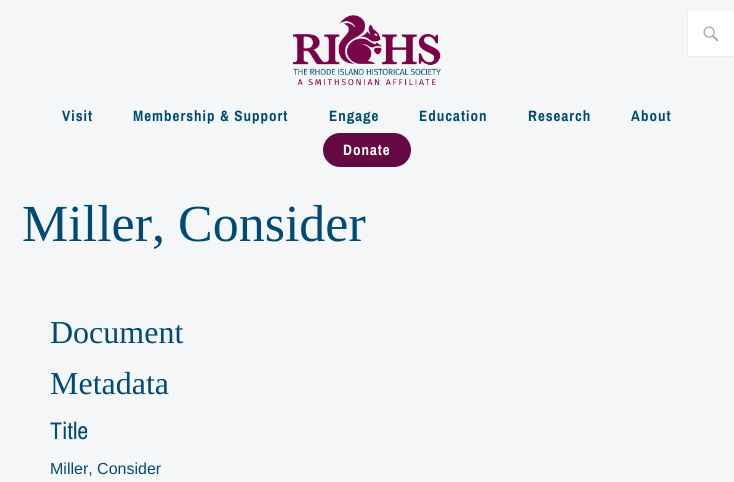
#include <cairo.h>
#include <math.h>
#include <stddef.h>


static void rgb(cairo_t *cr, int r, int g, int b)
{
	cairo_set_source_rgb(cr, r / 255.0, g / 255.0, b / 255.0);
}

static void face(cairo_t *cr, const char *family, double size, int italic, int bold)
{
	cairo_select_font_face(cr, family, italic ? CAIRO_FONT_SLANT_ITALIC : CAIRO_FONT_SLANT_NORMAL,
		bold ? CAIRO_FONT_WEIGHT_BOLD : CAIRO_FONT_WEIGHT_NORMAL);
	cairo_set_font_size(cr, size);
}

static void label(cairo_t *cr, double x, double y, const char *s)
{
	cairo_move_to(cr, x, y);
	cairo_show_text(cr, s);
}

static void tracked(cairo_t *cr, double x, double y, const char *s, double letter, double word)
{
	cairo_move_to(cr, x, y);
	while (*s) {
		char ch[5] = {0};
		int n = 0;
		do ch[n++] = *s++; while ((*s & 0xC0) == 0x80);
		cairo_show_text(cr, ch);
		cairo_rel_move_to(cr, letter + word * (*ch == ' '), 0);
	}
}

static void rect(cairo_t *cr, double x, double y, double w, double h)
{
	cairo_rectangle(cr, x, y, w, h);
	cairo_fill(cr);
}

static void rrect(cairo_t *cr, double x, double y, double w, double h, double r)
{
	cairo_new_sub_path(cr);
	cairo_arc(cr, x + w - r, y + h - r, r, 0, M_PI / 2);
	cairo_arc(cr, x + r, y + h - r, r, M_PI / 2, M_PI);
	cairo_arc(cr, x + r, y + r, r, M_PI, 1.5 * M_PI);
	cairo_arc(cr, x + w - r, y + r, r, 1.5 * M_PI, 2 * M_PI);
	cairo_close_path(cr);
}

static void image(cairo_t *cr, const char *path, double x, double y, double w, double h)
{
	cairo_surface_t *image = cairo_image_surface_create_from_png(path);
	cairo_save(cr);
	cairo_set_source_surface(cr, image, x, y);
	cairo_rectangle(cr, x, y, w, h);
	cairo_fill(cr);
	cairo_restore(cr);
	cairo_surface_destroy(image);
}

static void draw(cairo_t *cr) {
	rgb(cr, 244, 246, 247);
	cairo_paint(cr);
	rgb(cr, 238, 236, 232);
	rect(cr, 688, 56, 46, 1);
	rgb(cr, 255, 255, 255);
	rect(cr, 688, 10, 46, 46);
	rgb(cr, 238, 236, 232);
	rect(cr, 687, 10, 1, 46);
	image(cr, "image0.png", 703, 26, 16, 16);
	image(cr, "image1.png", 293, 15, 148, 70);
	face(cr, "Archivo Narrow", 15, 0, 1);
	rgb(cr, 0, 75, 116);
	tracked(cr, 62, 121, "Visit", 1, 0);
	tracked(cr, 133, 121, "Membership & Support", 1, 0);
	tracked(cr, 329, 121, "Engage", 1, 0);
	tracked(cr, 419, 121, "Education", 1, 0);
	tracked(cr, 528, 121, "Research", 1, 0);
	tracked(cr, 631, 121, "About", 1, 0);
	rgb(cr, 101, 9, 66);
	rrect(cr, 323, 133, 88, 34, 17);
	cairo_fill(cr);
	rgb(cr, 255, 255, 255);
	tracked(cr, 343, 155, "Donate", 1, 0);
	face(cr, "Tinos", 52, 0, 0);
	rgb(cr, 0, 75, 116);
	label(cr, 22, 241, "Miller, Consider");
	face(cr, "Tinos", 32, 0, 0);
	label(cr, 50, 343, "Document");
	label(cr, 50, 394, "Metadata");
	face(cr, "Archivo Narrow", 24, 0, 0);
	label(cr, 50, 439, "Title");
	face(cr, "Liberation Sans", 16, 0, 0);
	label(cr, 50, 474, "Miller, Consider");
}

int main(void) {
	cairo_surface_t *surface = cairo_image_surface_create(CAIRO_FORMAT_RGB24, 734, 482);
	cairo_t *cr = cairo_create(surface);
	cairo_font_options_t *options = cairo_font_options_create();
	cairo_font_options_set_hint_metrics(options, CAIRO_HINT_METRICS_OFF);
	cairo_font_options_set_hint_style(options, CAIRO_HINT_STYLE_NONE);
	cairo_set_font_options(cr, options);
	cairo_set_miter_limit(cr, 4);
	draw(cr);
	cairo_surface_write_to_png(surface, "render.png");
	cairo_font_options_destroy(options);
	cairo_destroy(cr);
	cairo_surface_destroy(surface);
	return 0;
}
